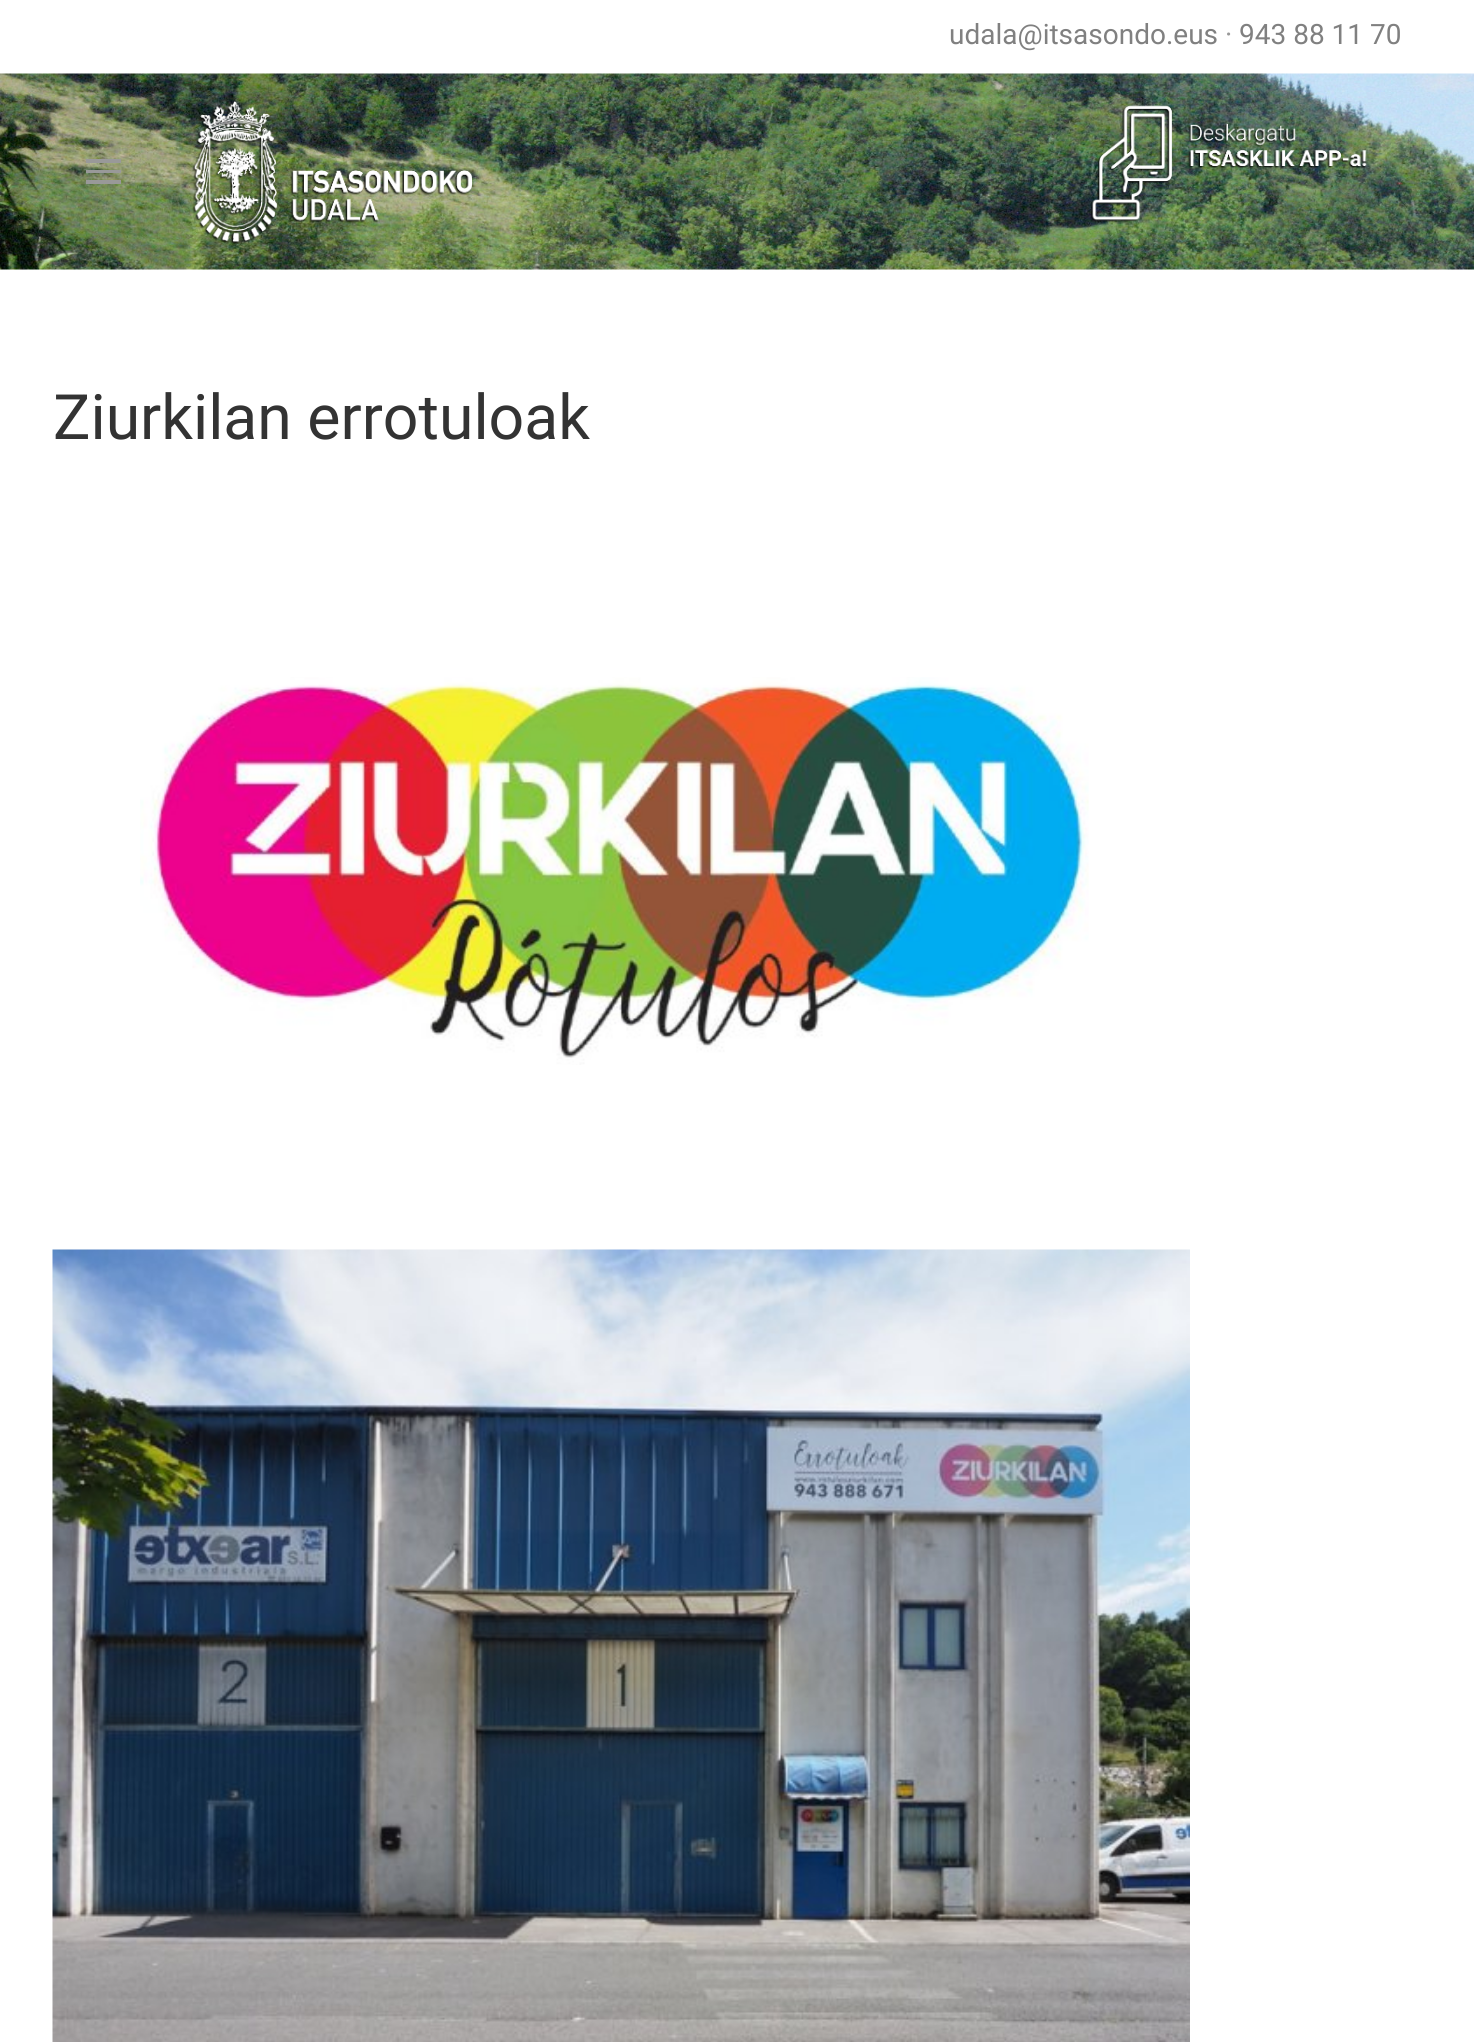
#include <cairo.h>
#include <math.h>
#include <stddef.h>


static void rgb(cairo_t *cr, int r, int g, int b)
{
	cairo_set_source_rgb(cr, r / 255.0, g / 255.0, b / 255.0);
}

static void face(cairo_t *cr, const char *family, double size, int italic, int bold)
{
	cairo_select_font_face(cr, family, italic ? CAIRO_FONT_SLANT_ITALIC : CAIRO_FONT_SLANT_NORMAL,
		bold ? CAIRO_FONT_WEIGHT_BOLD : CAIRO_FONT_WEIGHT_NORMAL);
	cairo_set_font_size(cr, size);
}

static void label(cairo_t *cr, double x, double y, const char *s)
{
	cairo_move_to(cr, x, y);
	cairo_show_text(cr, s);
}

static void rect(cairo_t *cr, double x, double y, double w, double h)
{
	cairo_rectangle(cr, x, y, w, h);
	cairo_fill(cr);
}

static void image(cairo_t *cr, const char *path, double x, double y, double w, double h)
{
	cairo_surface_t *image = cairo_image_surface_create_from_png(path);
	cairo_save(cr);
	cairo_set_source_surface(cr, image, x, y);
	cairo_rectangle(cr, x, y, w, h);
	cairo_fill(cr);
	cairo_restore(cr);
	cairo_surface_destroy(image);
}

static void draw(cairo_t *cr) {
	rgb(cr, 255, 255, 255);
	cairo_paint(cr);
	face(cr, "Roboto", 28, 0, 0);
	rgb(cr, 128, 128, 128);
	label(cr, 949, 44, "udala@itsasondo.eus");
	rgb(cr, 153, 153, 153);
	label(cr, 1225, 44, "·");
	rgb(cr, 128, 128, 128);
	label(cr, 1239, 44, "943 88 11 70");
	rgb(cr, 248, 248, 248);
	rect(cr, 0, 269, 1474, 1);
	image(cr, "image0.png", 0, 73, 1474, 197);
	rgb(cr, 153, 153, 153);
	rect(cr, 86, 170, 35, 3);
	rect(cr, 86, 159, 35, 4);
	rect(cr, 86, 180, 35, 4);
	image(cr, "image1.png", 192, 101, 280, 143);
	image(cr, "image2.png", 1090, 105, 277, 118);
	face(cr, "Roboto", 62.5, 0, 0);
	rgb(cr, 51, 51, 51);
	label(cr, 53, 439, "Ziurkilan errotuloak");
	image(cr, "image3.png", 140, 677, 949, 388);
	image(cr, "image4.png", 52, 1249, 1138, 793);
}

int main(void) {
	cairo_surface_t *surface = cairo_image_surface_create(CAIRO_FORMAT_RGB24, 1474, 2042);
	cairo_t *cr = cairo_create(surface);
	cairo_font_options_t *options = cairo_font_options_create();
	cairo_font_options_set_hint_metrics(options, CAIRO_HINT_METRICS_OFF);
	cairo_font_options_set_hint_style(options, CAIRO_HINT_STYLE_NONE);
	cairo_set_font_options(cr, options);
	cairo_set_miter_limit(cr, 4);
	draw(cr);
	cairo_surface_write_to_png(surface, "render.png");
	cairo_font_options_destroy(options);
	cairo_destroy(cr);
	cairo_surface_destroy(surface);
	return 0;
}
